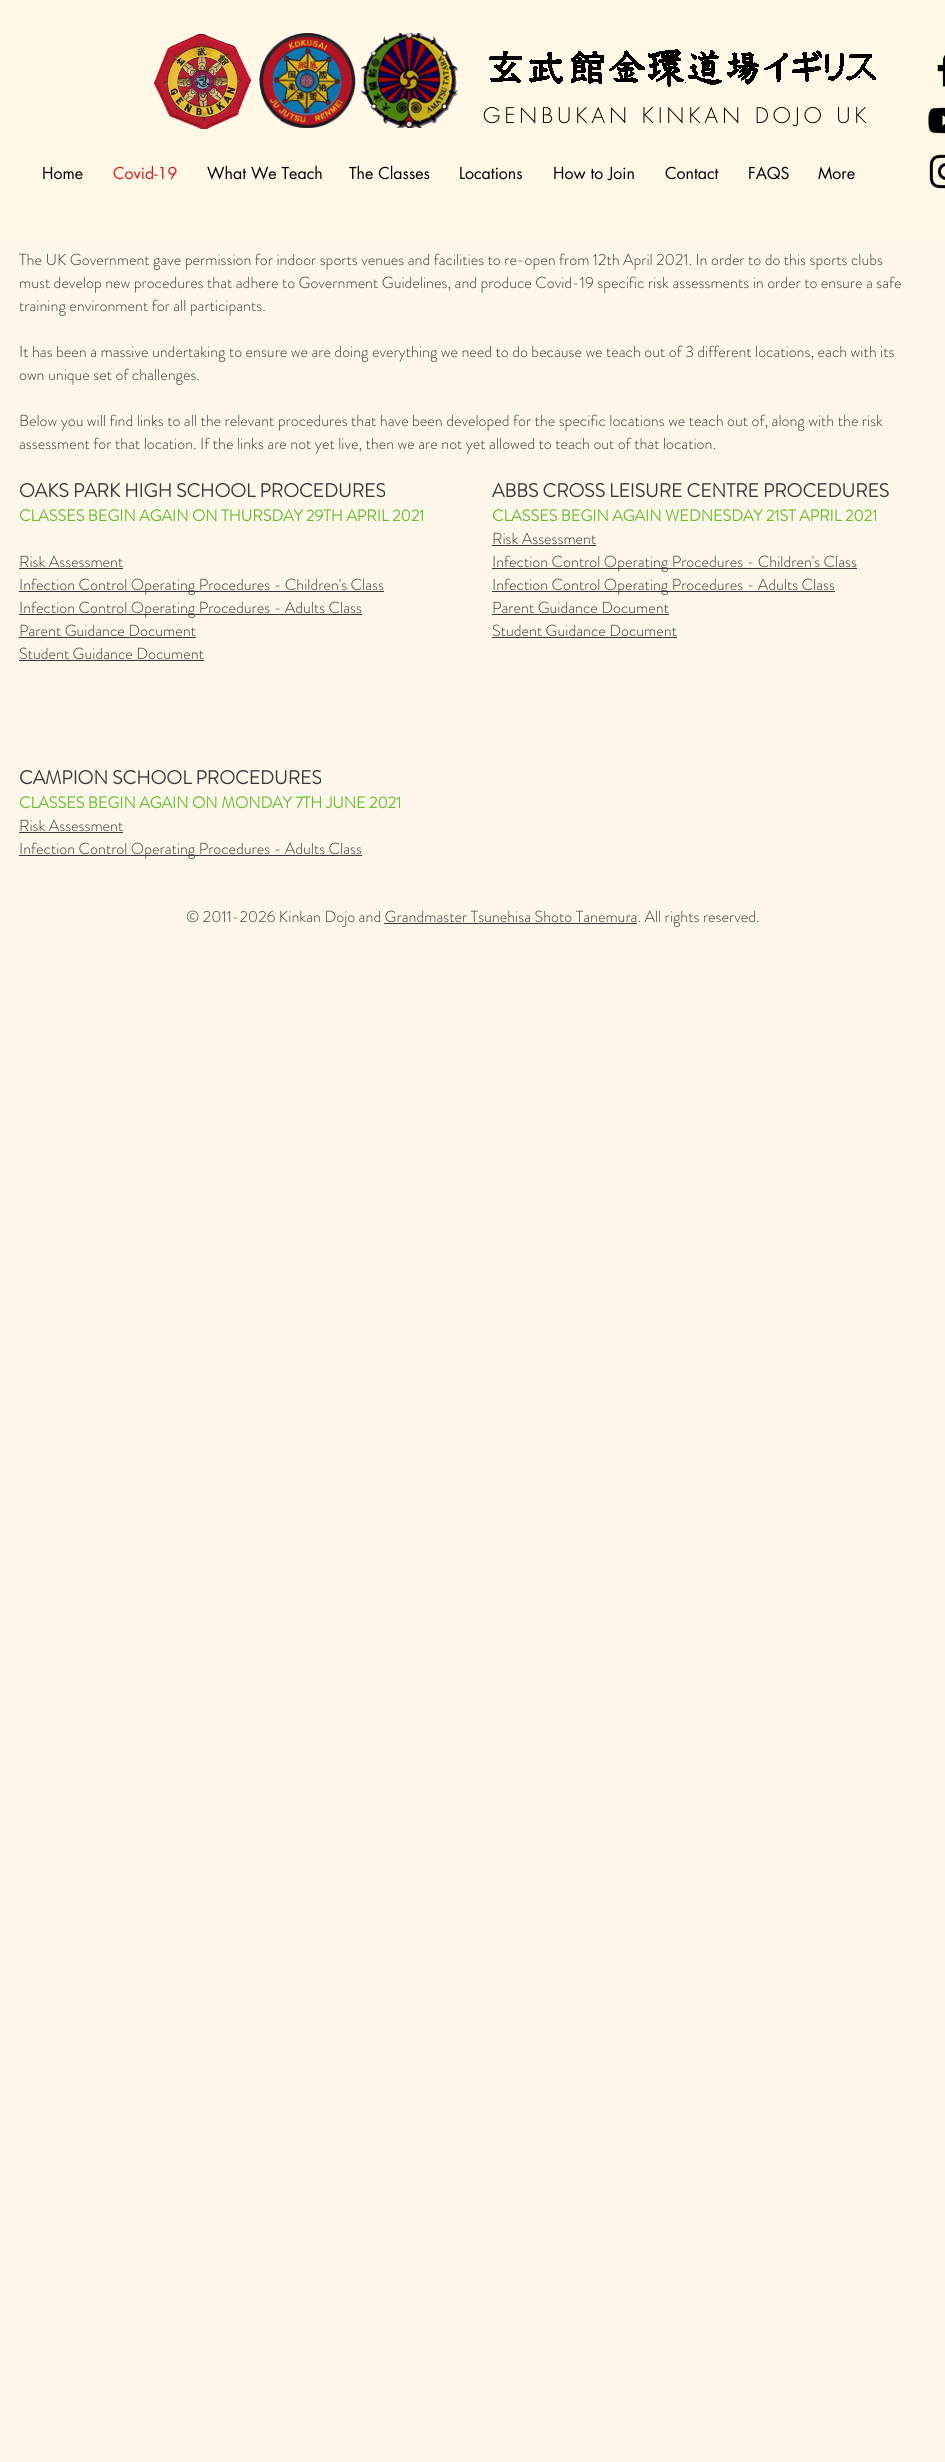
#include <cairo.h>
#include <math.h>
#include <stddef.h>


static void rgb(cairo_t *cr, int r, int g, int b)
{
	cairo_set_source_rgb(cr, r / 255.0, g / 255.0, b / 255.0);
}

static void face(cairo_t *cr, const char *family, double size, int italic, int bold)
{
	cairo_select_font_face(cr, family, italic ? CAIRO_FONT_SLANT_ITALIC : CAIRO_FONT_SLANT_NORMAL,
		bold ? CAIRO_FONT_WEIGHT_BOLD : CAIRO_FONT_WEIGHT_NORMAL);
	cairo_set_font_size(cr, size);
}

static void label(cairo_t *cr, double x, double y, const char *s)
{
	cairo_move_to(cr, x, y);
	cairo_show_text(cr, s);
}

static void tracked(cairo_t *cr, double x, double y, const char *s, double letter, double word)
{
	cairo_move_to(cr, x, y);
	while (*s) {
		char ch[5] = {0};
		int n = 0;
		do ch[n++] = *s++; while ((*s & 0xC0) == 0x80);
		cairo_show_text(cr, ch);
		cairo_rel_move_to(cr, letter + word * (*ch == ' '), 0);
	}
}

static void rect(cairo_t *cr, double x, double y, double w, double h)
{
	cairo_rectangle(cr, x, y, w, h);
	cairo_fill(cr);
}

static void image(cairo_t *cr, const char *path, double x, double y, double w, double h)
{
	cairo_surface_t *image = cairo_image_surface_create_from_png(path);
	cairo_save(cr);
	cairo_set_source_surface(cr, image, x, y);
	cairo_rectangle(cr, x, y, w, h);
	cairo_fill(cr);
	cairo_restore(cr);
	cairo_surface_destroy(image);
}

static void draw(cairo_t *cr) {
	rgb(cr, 252, 247, 232);
	cairo_paint(cr);
	rgb(cr, 255, 248, 230);
	rect(cr, 0, 0, 945, 236);
	image(cr, "image0.png", 154, 34, 97, 95);
	image(cr, "image1.png", 259, 33, 97, 95);
	image(cr, "image2.png", 361, 33, 97, 95);
	image(cr, "image3.png", 489, 49, 387, 38);
	image(cr, "image4.png", 937, 55, 8, 32);
	image(cr, "image5.png", 928, 107, 17, 27);
	image(cr, "image6.png", 929, 154, 16, 35);
	face(cr, "futura Light", 21, 0, 0);
	rgb(cr, 0, 0, 0);
	tracked(cr, 483, 123, "GENBUKAN KINKAN DOJO UK", 4.2, 0);
	face(cr, "futura", 16, 0, 0);
	label(cr, 42, 179, "Home");
	rgb(cr, 226, 28, 33);
	label(cr, 113, 179, "Covid-19");
	rgb(cr, 0, 0, 0);
	label(cr, 207, 179, "What We Teach");
	label(cr, 349, 179, "The Classes");
	label(cr, 459, 179, "Locations");
	label(cr, 553, 179, "How to Join");
	label(cr, 665, 179, "Contact");
	label(cr, 748, 179, "FAQS");
	label(cr, 818, 179, "More");
	face(cr, "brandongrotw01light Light", 16, 0, 0);
	rgb(cr, 56, 56, 56);
	label(cr, 19, 265, "The UK Government gave permission for indoor sports venues and facilities to re-open from 12th April 2021. In order to do this sports clubs");
	label(cr, 19, 288, "must develop new procedures that adhere to Government Guidelines, and produce Covid-19 specific risk assessments in order to ensure a safe");
	label(cr, 19, 311, "training environment for all participants.");
	label(cr, 19, 357, "It has been a massive undertaking to ensure we are doing everything we need to do because we teach out of 3 different locations, each with its");
	label(cr, 19, 380, "own unique set of challenges.");
	label(cr, 19, 426, "Below you will find links to all the relevant procedures that have been developed for the specific locations we teach out of, along with the risk");
	label(cr, 19, 449, "assessment for that location. If the links are not yet live, then we are not yet allowed to teach out of that location.");
	face(cr, "brandongrotw01light", 19, 0, 1);
	label(cr, 19, 497, "OAKS PARK HIGH SCHOOL PROCEDURES");
	face(cr, "brandongrotw01light", 16, 0, 1);
	rgb(cr, 103, 189, 49);
	label(cr, 19, 521, "CLASSES BEGIN AGAIN ON THURSDAY 29TH APRIL 2021");
	face(cr, "brandongrotw01light Light", 16, 0, 0);
	rgb(cr, 56, 56, 56);
	label(cr, 19, 567, "Risk Assessment");
	rect(cr, 19, 568, 104, 1);
	rect(cr, 19, 591, 365, 1);
	label(cr, 19, 590, "Infection Control Operating Procedures - Children's Class");
	rect(cr, 19, 614, 343, 1);
	label(cr, 19, 613, "Infection Control Operating Procedures - Adults Class");
	label(cr, 19, 636, "Parent Guidance Document");
	rect(cr, 19, 637, 177, 1);
	label(cr, 19, 659, "Student Guidance Document");
	rect(cr, 19, 660, 185, 1);
	face(cr, "brandongrotw01light", 19, 0, 1);
	label(cr, 492, 497, "ABBS CROSS LEISURE CENTRE PROCEDURES");
	face(cr, "brandongrotw01light", 16, 0, 1);
	rgb(cr, 103, 189, 49);
	label(cr, 492, 521, "CLASSES BEGIN AGAIN WEDNESDAY 21ST APRIL 2021");
	face(cr, "brandongrotw01light Light", 16, 0, 0);
	rgb(cr, 56, 56, 56);
	label(cr, 492, 544, "Risk Assessment");
	rect(cr, 492, 545, 104, 1);
	rect(cr, 492, 568, 365, 1);
	label(cr, 492, 567, "Infection Control Operating Procedures - Children's Class");
	rect(cr, 492, 591, 343, 1);
	label(cr, 492, 590, "Infection Control Operating Procedures - Adults Class");
	label(cr, 492, 613, "Parent Guidance Document");
	rect(cr, 492, 614, 177, 1);
	label(cr, 492, 636, "Student Guidance Document");
	rect(cr, 492, 637, 185, 1);
	face(cr, "brandongrotw01light", 19, 0, 1);
	label(cr, 19, 784, "CAMPION SCHOOL PROCEDURES");
	face(cr, "brandongrotw01light", 16, 0, 1);
	rgb(cr, 103, 189, 49);
	label(cr, 19, 808, "CLASSES BEGIN AGAIN ON MONDAY 7TH JUNE 2021");
	face(cr, "brandongrotw01light Light", 16, 0, 0);
	rgb(cr, 56, 56, 56);
	label(cr, 19, 831, "Risk Assessment");
	rect(cr, 19, 832, 104, 1);
	rect(cr, 19, 855, 343, 1);
	label(cr, 19, 854, "Infection Control Operating Procedures - Adults Class");
	label(cr, 186, 922, "© 2011-2026 Kinkan Dojo and Grandmaster Tsunehisa Shoto Tanemura. All rights reserved.");
	rect(cr, 384, 923, 253, 1);
}

int main(void) {
	cairo_surface_t *surface = cairo_image_surface_create(CAIRO_FORMAT_RGB24, 945, 2462);
	cairo_t *cr = cairo_create(surface);
	cairo_font_options_t *options = cairo_font_options_create();
	cairo_font_options_set_hint_metrics(options, CAIRO_HINT_METRICS_OFF);
	cairo_font_options_set_hint_style(options, CAIRO_HINT_STYLE_NONE);
	cairo_set_font_options(cr, options);
	cairo_set_miter_limit(cr, 4);
	draw(cr);
	cairo_surface_write_to_png(surface, "render.png");
	cairo_font_options_destroy(options);
	cairo_destroy(cr);
	cairo_surface_destroy(surface);
	return 0;
}
